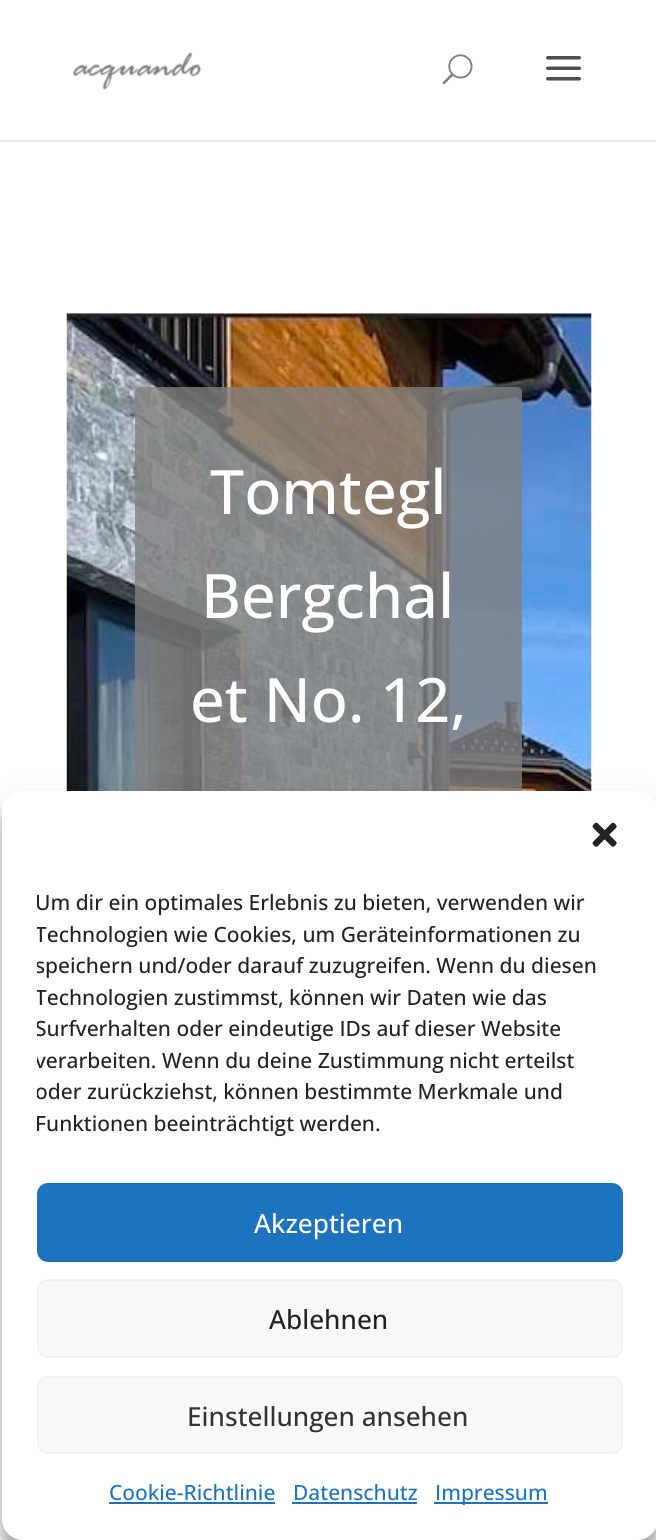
#include <cairo.h>
#include <math.h>
#include <stddef.h>


static void rgb(cairo_t *cr, int r, int g, int b)
{
	cairo_set_source_rgb(cr, r / 255.0, g / 255.0, b / 255.0);
}

static void face(cairo_t *cr, const char *family, double size, int italic, int bold)
{
	cairo_select_font_face(cr, family, italic ? CAIRO_FONT_SLANT_ITALIC : CAIRO_FONT_SLANT_NORMAL,
		bold ? CAIRO_FONT_WEIGHT_BOLD : CAIRO_FONT_WEIGHT_NORMAL);
	cairo_set_font_size(cr, size);
}

static void label(cairo_t *cr, double x, double y, const char *s)
{
	cairo_move_to(cr, x, y);
	cairo_show_text(cr, s);
}

static void rect(cairo_t *cr, double x, double y, double w, double h)
{
	cairo_rectangle(cr, x, y, w, h);
	cairo_fill(cr);
}

static void rrect(cairo_t *cr, double x, double y, double w, double h, double r)
{
	cairo_new_sub_path(cr);
	cairo_arc(cr, x + w - r, y + h - r, r, 0, M_PI / 2);
	cairo_arc(cr, x + r, y + h - r, r, M_PI / 2, M_PI);
	cairo_arc(cr, x + r, y + r, r, M_PI, 1.5 * M_PI);
	cairo_arc(cr, x + w - r, y + r, r, 1.5 * M_PI, 2 * M_PI);
	cairo_close_path(cr);
}

static void soft_shadow(cairo_t *cr, double x, double y, double w, double h, double r, double blur, double alpha)
{
	cairo_push_group_with_content(cr, CAIRO_CONTENT_ALPHA);
	cairo_set_operator(cr, CAIRO_OPERATOR_SOURCE);
	for (int i = 15; i >= -15 && fmin(w, h) + blur * i / 3 > 0; i -= 2) {
		double e = blur * i / 6;
		cairo_set_source_rgba(cr, 0, 0, 0, alpha * erfc((i - 1) / 8.5) / 2);
		rrect(cr, x - e, y - e, w + 2 * e, h + 2 * e, fmax(0, fmin(r + e + blur * .6, fmin(w, h) / 2 + e)));
		cairo_fill(cr);
	}
	cairo_pattern_t *soft = cairo_pop_group(cr);
	cairo_mask(cr, soft);
	cairo_pattern_destroy(soft);
}

static void image(cairo_t *cr, const char *path, double x, double y, double w, double h)
{
	cairo_surface_t *image = cairo_image_surface_create_from_png(path);
	cairo_save(cr);
	cairo_set_source_surface(cr, image, x, y);
	cairo_rectangle(cr, x, y, w, h);
	cairo_fill(cr);
	cairo_restore(cr);
	cairo_surface_destroy(image);
}

static void draw(cairo_t *cr) {
	rgb(cr, 255, 255, 255);
	cairo_paint(cr);
	rgb(cr, 230, 230, 230);
	rect(cr, 0, 140, 656, 2);
	image(cr, "image0.png", 72, 52, 129, 38);
	image(cr, "image1.png", 442, 54, 31, 31);
	image(cr, "image2.png", 546, 56, 35, 25);
	image(cr, "image3.png", 66, 313, 526, 478);
	cairo_set_source_rgba(cr, 0.502, 0.502, 0.502, 0.8);
	rrect(cr, 135, 387, 387, 625, 5);
	cairo_fill(cr);
	face(cr, "Open Sans Medium", 61.25, 0, 0);
	rgb(cr, 255, 255, 255);
	label(cr, 210, 514, "Tomtegl");
	label(cr, 201, 618, "Bergchal");
	label(cr, 190, 722, "et No. 12,");
	rgb(cr, 0, 0, 0);
	soft_shadow(cr, 2, 802, 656, 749, 21, 5, 0.23);
	soft_shadow(cr, 2, 809, 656, 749, 21, 17.5, 0.19);
	rgb(cr, 255, 255, 255);
	rrect(cr, 2, 791, 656, 749, 21);
	cairo_fill(cr);
	image(cr, "image4.png", 592, 822, 25, 25);
	cairo_save(cr);
	cairo_rectangle(cr, 37, 887, 586, 261);
	cairo_clip(cr);
	face(cr, "Open Sans Medium", 21, 0, 0);
	rgb(cr, 34, 34, 34);
	label(cr, 35, 910, "Um dir ein optimales Erlebnis zu bieten, verwenden wir");
	label(cr, 35, 942, "Technologien wie Cookies, um Geräteinformationen zu");
	label(cr, 35, 973, "speichern und/oder darauf zuzugreifen. Wenn du diesen");
	label(cr, 35, 1005, "Technologien zustimmst, können wir Daten wie das");
	label(cr, 35, 1036, "Surfverhalten oder eindeutige IDs auf dieser Website");
	label(cr, 35, 1068, "verarbeiten. Wenn du deine Zustimmung nicht erteilst");
	label(cr, 35, 1099, "oder zurückziehst, können bestimmte Merkmale und");
	cairo_restore(cr);
	face(cr, "Open Sans Medium", 21, 0, 0);
	rgb(cr, 34, 34, 34);
	label(cr, 35, 1131, "Funktionen beeinträchtigt werden.");
	rgb(cr, 30, 115, 190);
	rrect(cr, 38, 1184, 584, 77, 10);
	cairo_fill_preserve(cr);
	cairo_stroke(cr);
	face(cr, "Open Sans Medium", 26.25, 0, 0);
	rgb(cr, 255, 255, 255);
	label(cr, 254, 1233, "Akzeptieren");
	rgb(cr, 249, 249, 249);
	rrect(cr, 38, 1280, 584, 77, 10);
	cairo_fill_preserve(cr);
	rgb(cr, 242, 242, 242);
	cairo_stroke(cr);
	rgb(cr, 34, 34, 34);
	label(cr, 269, 1329, "Ablehnen");
	rgb(cr, 249, 249, 249);
	rrect(cr, 38, 1377, 584, 76, 10);
	cairo_fill_preserve(cr);
	rgb(cr, 242, 242, 242);
	cairo_stroke(cr);
	rgb(cr, 51, 51, 51);
	label(cr, 187, 1426, "Einstellungen ansehen");
	face(cr, "Open Sans Medium", 21, 0, 0);
	rgb(cr, 30, 115, 190);
	label(cr, 109, 1500, "Cookie-Richtlinie");
	rect(cr, 109, 1502, 166, 2);
	label(cr, 293, 1500, "Datenschutz");
	rect(cr, 292, 1502, 125, 2);
	rect(cr, 434, 1502, 114, 2);
	label(cr, 435, 1500, "Impressum");
}

int main(void) {
	cairo_surface_t *surface = cairo_image_surface_create(CAIRO_FORMAT_RGB24, 656, 1540);
	cairo_t *cr = cairo_create(surface);
	cairo_font_options_t *options = cairo_font_options_create();
	cairo_font_options_set_hint_metrics(options, CAIRO_HINT_METRICS_OFF);
	cairo_font_options_set_hint_style(options, CAIRO_HINT_STYLE_NONE);
	cairo_set_font_options(cr, options);
	cairo_set_miter_limit(cr, 4);
	draw(cr);
	cairo_surface_write_to_png(surface, "render.png");
	cairo_font_options_destroy(options);
	cairo_destroy(cr);
	cairo_surface_destroy(surface);
	return 0;
}
